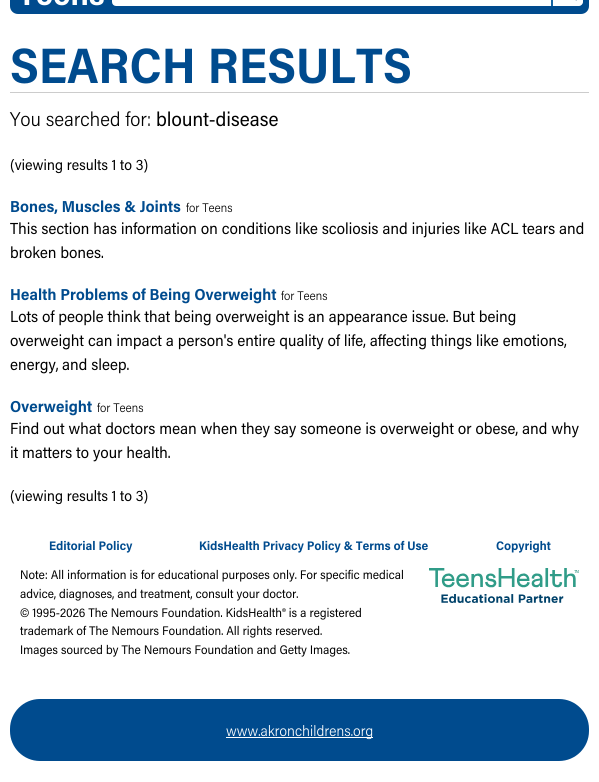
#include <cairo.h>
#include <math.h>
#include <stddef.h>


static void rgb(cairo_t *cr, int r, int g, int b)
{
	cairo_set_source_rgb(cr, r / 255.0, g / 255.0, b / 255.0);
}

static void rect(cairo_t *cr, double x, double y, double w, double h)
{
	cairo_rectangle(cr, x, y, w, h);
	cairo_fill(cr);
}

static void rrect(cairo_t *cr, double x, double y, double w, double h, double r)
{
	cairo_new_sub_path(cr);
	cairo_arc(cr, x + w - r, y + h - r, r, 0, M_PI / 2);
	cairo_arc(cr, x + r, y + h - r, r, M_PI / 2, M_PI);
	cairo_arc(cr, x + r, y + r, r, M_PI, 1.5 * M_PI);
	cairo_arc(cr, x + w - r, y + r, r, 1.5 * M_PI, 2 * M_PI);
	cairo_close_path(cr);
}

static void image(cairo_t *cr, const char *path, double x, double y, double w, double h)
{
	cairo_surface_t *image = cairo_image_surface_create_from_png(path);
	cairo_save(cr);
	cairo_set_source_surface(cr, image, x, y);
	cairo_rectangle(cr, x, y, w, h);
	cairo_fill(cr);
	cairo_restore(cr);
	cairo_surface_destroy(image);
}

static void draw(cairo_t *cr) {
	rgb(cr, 255, 255, 255);
	cairo_paint(cr);
	rgb(cr, 0, 75, 142);
	cairo_new_path(cr);
	cairo_move_to(cr, 18, -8);
	cairo_line_to(cr, 589, -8);
	cairo_line_to(cr, 589, 6);
	cairo_curve_to(cr, 589, 10.5, 585.5, 14, 581, 14);
	cairo_line_to(cr, 18, 14);
	cairo_curve_to(cr, 13.5, 14, 10, 10.5, 10, 6);
	cairo_line_to(cr, 10, 0);
	cairo_curve_to(cr, 10, -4.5, 13.5, -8, 18, -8);
	cairo_close_path(cr);
	cairo_fill(cr);
	image(cr, "image0.png", 24, 0, 80, 6);
	cairo_new_path(cr);
	cairo_move_to(cr, 116, -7);
	cairo_line_to(cr, 548, -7);
	cairo_line_to(cr, 548, 3);
	cairo_line_to(cr, 116, 3);
	cairo_curve_to(cr, 115.5, 3, 115, 2.5, 115, 2);
	cairo_line_to(cr, 115, -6);
	cairo_curve_to(cr, 115, -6.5, 115.5, -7, 116, -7);
	cairo_close_path(cr);
	rgb(cr, 255, 255, 255);
	cairo_set_line_width(cr, 6);
	cairo_stroke(cr);
	rgb(cr, 21, 100, 162);
	rect(cr, 551, 0, 2, 6);
	rgb(cr, 255, 255, 255);
	cairo_new_path(cr);
	cairo_move_to(cr, 553, -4);
	cairo_line_to(cr, 583, -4);
	cairo_line_to(cr, 583, 2);
	cairo_curve_to(cr, 583, 4, 581, 6, 579, 6);
	cairo_line_to(cr, 553, 6);
	cairo_close_path(cr);
	cairo_fill(cr);
	image(cr, "image1.png", 575, 0, 2, 1);
	rgb(cr, 204, 204, 204);
	rect(cr, 10, 92, 579, 1);
	image(cr, "image2.png", 11, 48, 399, 36);
	image(cr, "image3.png", 9, 111, 141, 16);
	image(cr, "image4.png", 157, 111, 121, 16);
	image(cr, "image5.png", 10, 159, 138, 15);
	image(cr, "image6.png", 11, 200, 170, 14);
	image(cr, "image7.png", 186, 202, 47, 11);
	image(cr, "image8.png", 10, 222, 545, 16);
	image(cr, "image9.png", 559, 222, 25, 13);
	image(cr, "image10.png", 11, 246, 93, 13);
	image(cr, "image11.png", 11, 288, 266, 16);
	image(cr, "image7.png", 281, 290, 47, 11);
	image(cr, "image12.png", 11, 310, 505, 16);
	image(cr, "image13.png", 10, 334, 74, 16);
	image(cr, "image14.png", 88, 334, 479, 16);
	image(cr, "image15.png", 10, 361, 48, 13);
	image(cr, "image16.png", 62, 358, 67, 16);
	image(cr, "image17.png", 10, 400, 82, 16);
	image(cr, "image7.png", 97, 402, 47, 11);
	image(cr, "image18.png", 11, 422, 568, 16);
	image(cr, "image19.png", 11, 446, 7, 13);
	image(cr, "image20.png", 23, 446, 147, 16);
	image(cr, "image5.png", 10, 490, 138, 15);
	image(cr, "image21.png", 49, 540, 84, 13);
	image(cr, "image22.png", 199, 540, 229, 13);
	image(cr, "image23.png", 496, 540, 55, 13);
	image(cr, "image24.png", 21, 569, 382, 13);
	image(cr, "image25.png", 429, 568, 150, 35);
	image(cr, "image26.png", 20, 588, 36, 12);
	image(cr, "image27.png", 59, 588, 239, 13);
	image(cr, "image28.png", 20, 608, 40, 10);
	image(cr, "image29.png", 60, 607, 301, 13);
	image(cr, "image30.png", 20, 625, 302, 13);
	image(cr, "image31.png", 21, 644, 329, 13);
	rgb(cr, 0, 75, 142);
	rrect(cr, 10, 699, 579, 62, 30);
	cairo_fill(cr);
	rgb(cr, 255, 255, 255);
	rect(cr, 226, 737, 147, 1);
	image(cr, "image32.png", 226, 725, 147, 15);
}

int main(void) {
	cairo_surface_t *surface = cairo_image_surface_create(CAIRO_FORMAT_RGB24, 599, 782);
	cairo_t *cr = cairo_create(surface);
	cairo_font_options_t *options = cairo_font_options_create();
	cairo_font_options_set_hint_metrics(options, CAIRO_HINT_METRICS_OFF);
	cairo_font_options_set_hint_style(options, CAIRO_HINT_STYLE_NONE);
	cairo_set_font_options(cr, options);
	cairo_set_miter_limit(cr, 4);
	draw(cr);
	cairo_surface_write_to_png(surface, "render.png");
	cairo_font_options_destroy(options);
	cairo_destroy(cr);
	cairo_surface_destroy(surface);
	return 0;
}
